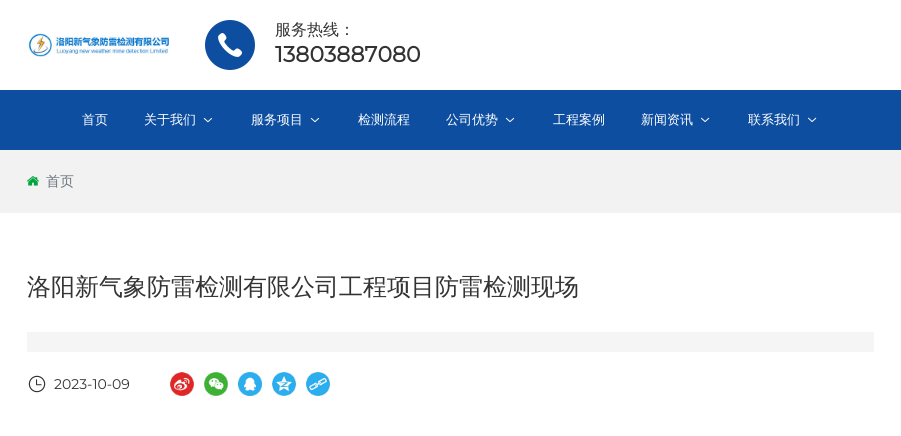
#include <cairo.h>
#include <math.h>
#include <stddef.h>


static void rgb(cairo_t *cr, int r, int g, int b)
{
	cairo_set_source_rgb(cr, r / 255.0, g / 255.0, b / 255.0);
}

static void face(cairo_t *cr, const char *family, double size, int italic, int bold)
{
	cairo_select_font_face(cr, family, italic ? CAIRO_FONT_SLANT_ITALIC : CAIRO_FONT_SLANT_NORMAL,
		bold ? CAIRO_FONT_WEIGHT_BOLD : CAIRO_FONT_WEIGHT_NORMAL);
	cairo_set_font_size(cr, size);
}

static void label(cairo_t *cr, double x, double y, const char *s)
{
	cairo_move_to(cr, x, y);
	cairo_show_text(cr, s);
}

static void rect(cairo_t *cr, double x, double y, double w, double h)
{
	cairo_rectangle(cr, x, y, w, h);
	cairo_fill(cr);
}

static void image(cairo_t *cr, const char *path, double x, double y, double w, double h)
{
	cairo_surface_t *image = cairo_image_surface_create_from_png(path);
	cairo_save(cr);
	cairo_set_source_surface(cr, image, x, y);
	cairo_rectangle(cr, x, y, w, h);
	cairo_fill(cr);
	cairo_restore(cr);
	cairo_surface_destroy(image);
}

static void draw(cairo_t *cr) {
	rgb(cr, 255, 255, 255);
	cairo_paint(cr);
	image(cr, "image0.png", 27, 33, 142, 24);
	image(cr, "image1.png", 205, 20, 50, 50);
	face(cr, "WenQuanYi Zen Hei Medium", 16, 0, 0);
	rgb(cr, 51, 51, 51);
	label(cr, 275, 35, "服务热线：");
	face(cr, "Montserrat", 22, 0, 1);
	label(cr, 275, 62, "13803887080");
	rgb(cr, 13, 78, 161);
	rect(cr, 0, 90, 901, 60);
	face(cr, "WenQuanYi Zen Hei Medium", 13, 0, 0);
	rgb(cr, 255, 255, 255);
	label(cr, 82, 124, "首页");
	label(cr, 144, 124, "关于我们");
	image(cr, "image2.png", 203, 118, 9, 5);
	label(cr, 251, 124, "服务项目");
	image(cr, "image3.png", 310, 117, 10, 6);
	label(cr, 358, 124, "检测流程");
	label(cr, 446, 124, "公司优势");
	image(cr, "image4.png", 505, 117, 10, 6);
	label(cr, 553, 124, "工程案例");
	label(cr, 641, 124, "新闻资讯");
	image(cr, "image5.png", 701, 117, 9, 5);
	label(cr, 748, 124, "联系我们");
	image(cr, "image6.png", 808, 117, 9, 5);
	rgb(cr, 242, 242, 242);
	rect(cr, 0, 150, 901, 63);
	image(cr, "image7.png", 27, 176, 12, 10);
	face(cr, "WenQuanYi Zen Hei Medium", 14, 0, 0);
	rgb(cr, 108, 117, 125);
	label(cr, 46, 186, "首页");
	face(cr, "WenQuanYi Zen Hei Medium", 24, 0, 0);
	rgb(cr, 51, 51, 51);
	label(cr, 27, 295, "洛阳新气象防雷检测有限公司工程项目防雷检测现场");
	rgb(cr, 245, 245, 245);
	rect(cr, 27, 332, 847, 20);
	image(cr, "image8.png", 28, 375, 18, 18);
	face(cr, "Montserrat", 14, 0, 0);
	rgb(cr, 51, 51, 51);
	label(cr, 54, 389, "2023-10-09");
	image(cr, "image9.png", 170, 372, 24, 24);
	image(cr, "image10.png", 204, 372, 24, 24);
	image(cr, "image11.png", 238, 372, 24, 24);
	image(cr, "image12.png", 272, 372, 24, 24);
	image(cr, "image13.png", 306, 372, 24, 24);
}

int main(void) {
	cairo_surface_t *surface = cairo_image_surface_create(CAIRO_FORMAT_RGB24, 901, 436);
	cairo_t *cr = cairo_create(surface);
	cairo_font_options_t *options = cairo_font_options_create();
	cairo_font_options_set_hint_metrics(options, CAIRO_HINT_METRICS_OFF);
	cairo_font_options_set_hint_style(options, CAIRO_HINT_STYLE_NONE);
	cairo_set_font_options(cr, options);
	cairo_set_miter_limit(cr, 4);
	draw(cr);
	cairo_surface_write_to_png(surface, "render.png");
	cairo_font_options_destroy(options);
	cairo_destroy(cr);
	cairo_surface_destroy(surface);
	return 0;
}
